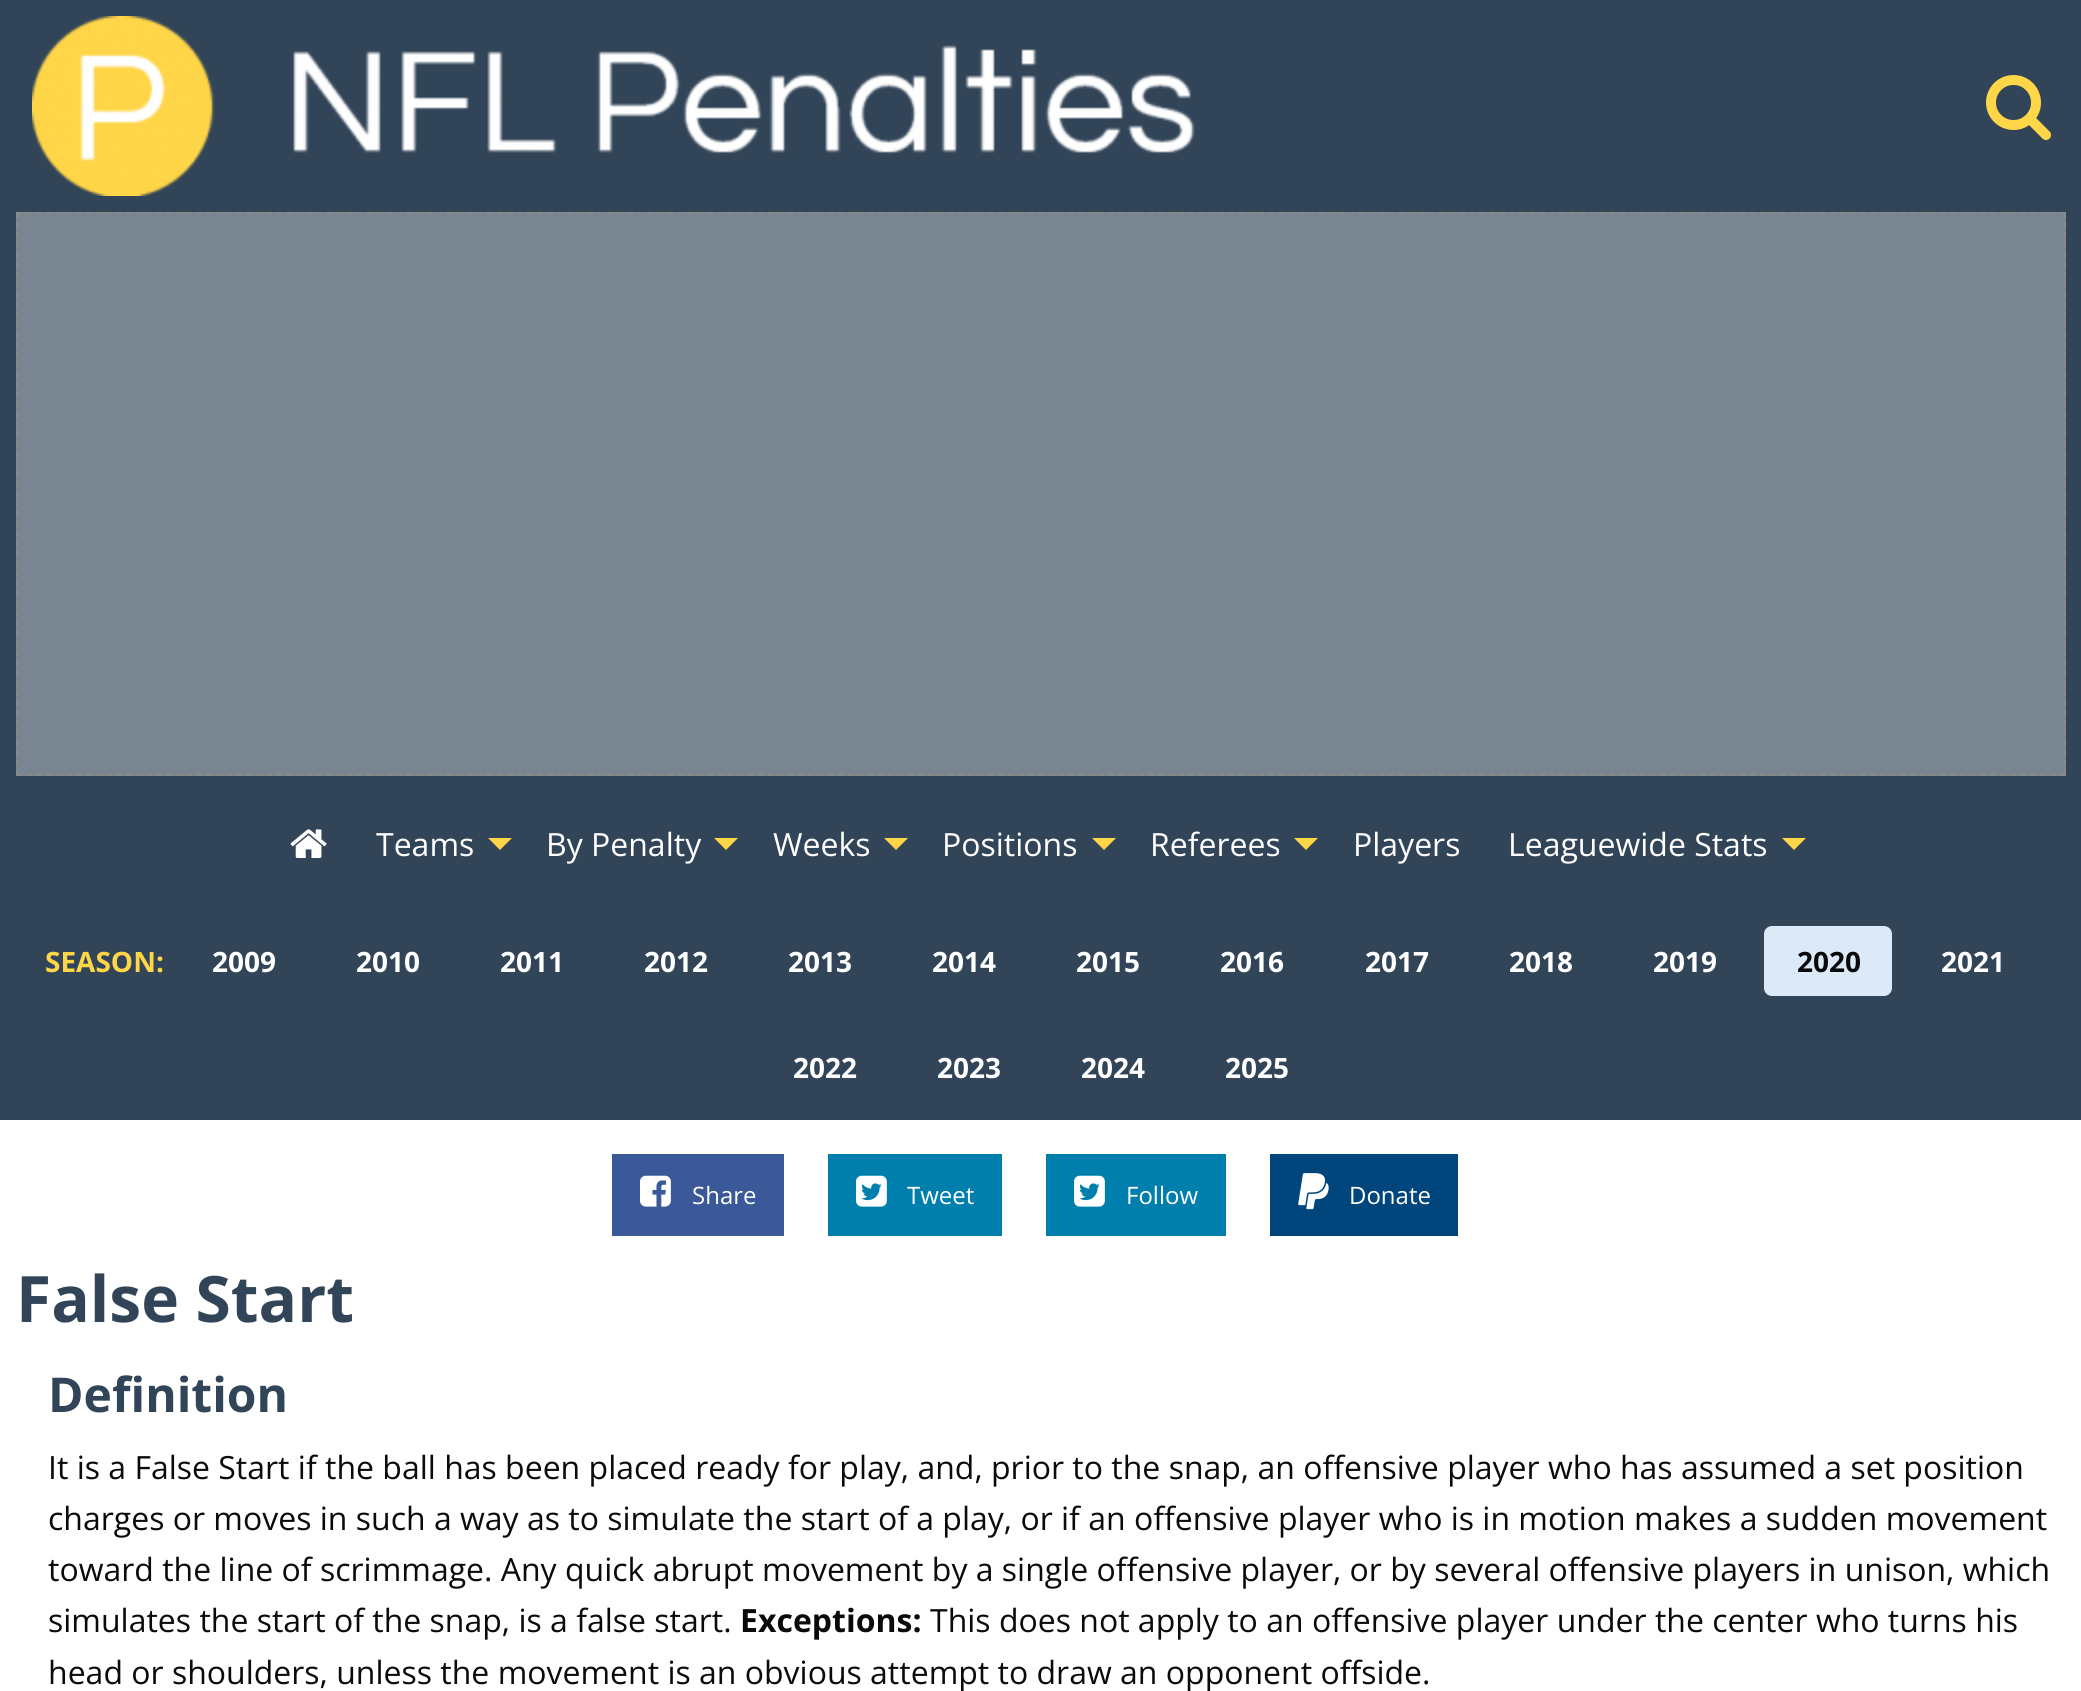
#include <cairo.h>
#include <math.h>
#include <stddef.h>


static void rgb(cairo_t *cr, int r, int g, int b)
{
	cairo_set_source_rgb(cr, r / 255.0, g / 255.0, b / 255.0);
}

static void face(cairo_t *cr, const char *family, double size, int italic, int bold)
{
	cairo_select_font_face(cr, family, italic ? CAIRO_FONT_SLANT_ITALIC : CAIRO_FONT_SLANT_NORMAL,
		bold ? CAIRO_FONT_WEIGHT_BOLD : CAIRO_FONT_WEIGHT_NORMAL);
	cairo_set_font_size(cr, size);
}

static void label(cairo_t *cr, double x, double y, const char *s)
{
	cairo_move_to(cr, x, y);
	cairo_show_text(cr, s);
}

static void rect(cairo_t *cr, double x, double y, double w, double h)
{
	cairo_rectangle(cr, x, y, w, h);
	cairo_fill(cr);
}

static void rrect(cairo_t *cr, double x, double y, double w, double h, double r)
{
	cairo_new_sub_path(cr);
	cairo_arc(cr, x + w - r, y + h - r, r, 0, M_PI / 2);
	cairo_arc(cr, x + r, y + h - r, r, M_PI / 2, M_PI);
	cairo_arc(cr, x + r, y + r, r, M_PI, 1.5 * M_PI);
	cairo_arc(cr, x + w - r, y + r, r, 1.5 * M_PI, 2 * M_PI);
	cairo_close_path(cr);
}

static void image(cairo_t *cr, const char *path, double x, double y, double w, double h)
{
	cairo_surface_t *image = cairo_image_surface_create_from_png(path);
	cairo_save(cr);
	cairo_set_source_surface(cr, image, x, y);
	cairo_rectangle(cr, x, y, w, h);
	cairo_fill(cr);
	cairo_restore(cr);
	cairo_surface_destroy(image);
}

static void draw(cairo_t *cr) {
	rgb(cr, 255, 255, 255);
	cairo_paint(cr);
	rgb(cr, 50, 69, 88);
	rect(cr, 0, 0, 2081, 1120);
	image(cr, "image0.png", 32, 16, 1163, 180);
	image(cr, "image1.png", 1986, 75, 65, 65);
	rgb(cr, 121, 133, 145);
	rect(cr, 16, 212, 2050, 564);
	cairo_new_path(cr);
	cairo_move_to(cr, 16, 213);
	cairo_line_to(cr, 2066, 213);
	rgb(cr, 137, 139, 136);
	cairo_set_dash(cr, (double[]){6, 4.02}, 2, 0);
	cairo_stroke(cr);
	cairo_new_path(cr);
	cairo_move_to(cr, 2065, 212);
	cairo_line_to(cr, 2065, 776);
	cairo_set_dash(cr, (double[]){6, 3.96}, 2, 0);
	cairo_stroke(cr);
	cairo_new_path(cr);
	cairo_move_to(cr, 16, 775);
	cairo_line_to(cr, 2066, 775);
	cairo_set_dash(cr, (double[]){6, 4.02}, 2, 0);
	cairo_stroke(cr);
	cairo_new_path(cr);
	cairo_move_to(cr, 17, 212);
	cairo_line_to(cr, 17, 776);
	cairo_set_dash(cr, (double[]){6, 3.96}, 2, 0);
	cairo_stroke(cr);
	image(cr, "image2.png", 290, 829, 37, 29);
	face(cr, "Open Sans", 32, 0, 0);
	rgb(cr, 255, 255, 255);
	label(cr, 376, 856, "Teams");
	rgb(cr, 255, 214, 72);
	cairo_new_path(cr);
	cairo_move_to(cr, 488, 838);
	cairo_line_to(cr, 512, 838);
	cairo_line_to(cr, 500, 850);
	cairo_close_path(cr);
	cairo_fill(cr);
	rgb(cr, 255, 255, 255);
	label(cr, 546, 856, "By Penalty");
	rgb(cr, 255, 214, 72);
	cairo_new_path(cr);
	cairo_move_to(cr, 714, 838);
	cairo_line_to(cr, 738, 838);
	cairo_line_to(cr, 726, 850);
	cairo_close_path(cr);
	cairo_fill(cr);
	rgb(cr, 255, 255, 255);
	label(cr, 773, 856, "Weeks");
	rgb(cr, 255, 214, 72);
	cairo_new_path(cr);
	cairo_move_to(cr, 884, 838);
	cairo_line_to(cr, 908, 838);
	cairo_line_to(cr, 896, 850);
	cairo_close_path(cr);
	cairo_fill(cr);
	rgb(cr, 255, 255, 255);
	label(cr, 942, 856, "Positions");
	rgb(cr, 255, 214, 72);
	cairo_new_path(cr);
	cairo_move_to(cr, 1092, 838);
	cairo_line_to(cr, 1116, 838);
	cairo_line_to(cr, 1104, 850);
	cairo_close_path(cr);
	cairo_fill(cr);
	rgb(cr, 255, 255, 255);
	label(cr, 1150, 856, "Referees");
	rgb(cr, 255, 214, 72);
	cairo_new_path(cr);
	cairo_move_to(cr, 1294, 838);
	cairo_line_to(cr, 1318, 838);
	cairo_line_to(cr, 1306, 850);
	cairo_close_path(cr);
	cairo_fill(cr);
	rgb(cr, 255, 255, 255);
	label(cr, 1353, 856, "Players");
	label(cr, 1508, 856, "Leaguewide Stats");
	rgb(cr, 255, 214, 72);
	cairo_new_path(cr);
	cairo_move_to(cr, 1782, 838);
	cairo_line_to(cr, 1806, 838);
	cairo_line_to(cr, 1794, 850);
	cairo_close_path(cr);
	cairo_fill(cr);
	face(cr, "Open Sans", 28, 0, 1);
	label(cr, 45, 972, "SEASON:");
	rgb(cr, 255, 255, 255);
	label(cr, 212, 972, "2009");
	label(cr, 356, 972, "2010");
	label(cr, 500, 972, "2011");
	label(cr, 644, 972, "2012");
	label(cr, 788, 972, "2013");
	label(cr, 932, 972, "2014");
	label(cr, 1076, 972, "2015");
	label(cr, 1220, 972, "2016");
	label(cr, 1365, 972, "2017");
	label(cr, 1509, 972, "2018");
	label(cr, 1653, 972, "2019");
	rgb(cr, 220, 233, 249);
	rrect(cr, 1764, 926, 128, 70, 8);
	cairo_fill(cr);
	rgb(cr, 10, 10, 10);
	label(cr, 1797, 972, "2020");
	rgb(cr, 255, 255, 255);
	label(cr, 1941, 972, "2021");
	label(cr, 793, 1078, "2022");
	label(cr, 937, 1078, "2023");
	label(cr, 1081, 1078, "2024");
	label(cr, 1225, 1078, "2025");
	rgb(cr, 59, 89, 152);
	rect(cr, 612, 1154, 172, 82);
	image(cr, "image3.png", 640, 1175, 31, 32);
	face(cr, "Open Sans", 24, 0, 0);
	rgb(cr, 255, 255, 255);
	label(cr, 692, 1204, "Share");
	rgb(cr, 0, 127, 173);
	rect(cr, 828, 1154, 174, 82);
	image(cr, "image4.png", 856, 1175, 31, 32);
	rgb(cr, 255, 255, 255);
	label(cr, 907, 1204, "Tweet");
	rgb(cr, 0, 127, 173);
	rect(cr, 1046, 1154, 180, 82);
	image(cr, "image4.png", 1074, 1175, 31, 32);
	rgb(cr, 255, 255, 255);
	label(cr, 1126, 1204, "Follow");
	rgb(cr, 0, 69, 124);
	rect(cr, 1270, 1154, 188, 82);
	image(cr, "image5.png", 1298, 1173, 31, 37);
	rgb(cr, 255, 255, 255);
	label(cr, 1349, 1204, "Donate");
	face(cr, "Open Sans", 64, 0, 1);
	rgb(cr, 50, 69, 88);
	label(cr, 16, 1322, "False Start");
	face(cr, "Open Sans", 48, 0, 1);
	label(cr, 48, 1412, "Definition");
	face(cr, "Open Sans", 32, 0, 0);
	rgb(cr, 10, 10, 10);
	label(cr, 48, 1479, "It is a False Start if the ball has been placed ready for play, and, prior to the snap, an offensive player who has assumed a set position");
	label(cr, 48, 1530, "charges or moves in such a way as to simulate the start of a play, or if an offensive player who is in motion makes a sudden movement");
	label(cr, 48, 1581, "toward the line of scrimmage. Any quick abrupt movement by a single offensive player, or by several offensive players in unison, which");
	label(cr, 48, 1632, "simulates the start of the snap, is a false start.");
	face(cr, "Open Sans", 32, 0, 1);
	label(cr, 740, 1632, "Exceptions:");
	face(cr, "Open Sans", 32, 0, 0);
	label(cr, 930, 1632, "This does not apply to an offensive player under the center who turns his");
	label(cr, 48, 1684, "head or shoulders, unless the movement is an obvious attempt to draw an opponent offside.");
}

int main(void) {
	cairo_surface_t *surface = cairo_image_surface_create(CAIRO_FORMAT_RGB24, 2081, 1691);
	cairo_t *cr = cairo_create(surface);
	cairo_font_options_t *options = cairo_font_options_create();
	cairo_font_options_set_hint_metrics(options, CAIRO_HINT_METRICS_OFF);
	cairo_font_options_set_hint_style(options, CAIRO_HINT_STYLE_NONE);
	cairo_set_font_options(cr, options);
	cairo_set_miter_limit(cr, 4);
	draw(cr);
	cairo_surface_write_to_png(surface, "render.png");
	cairo_font_options_destroy(options);
	cairo_destroy(cr);
	cairo_surface_destroy(surface);
	return 0;
}
